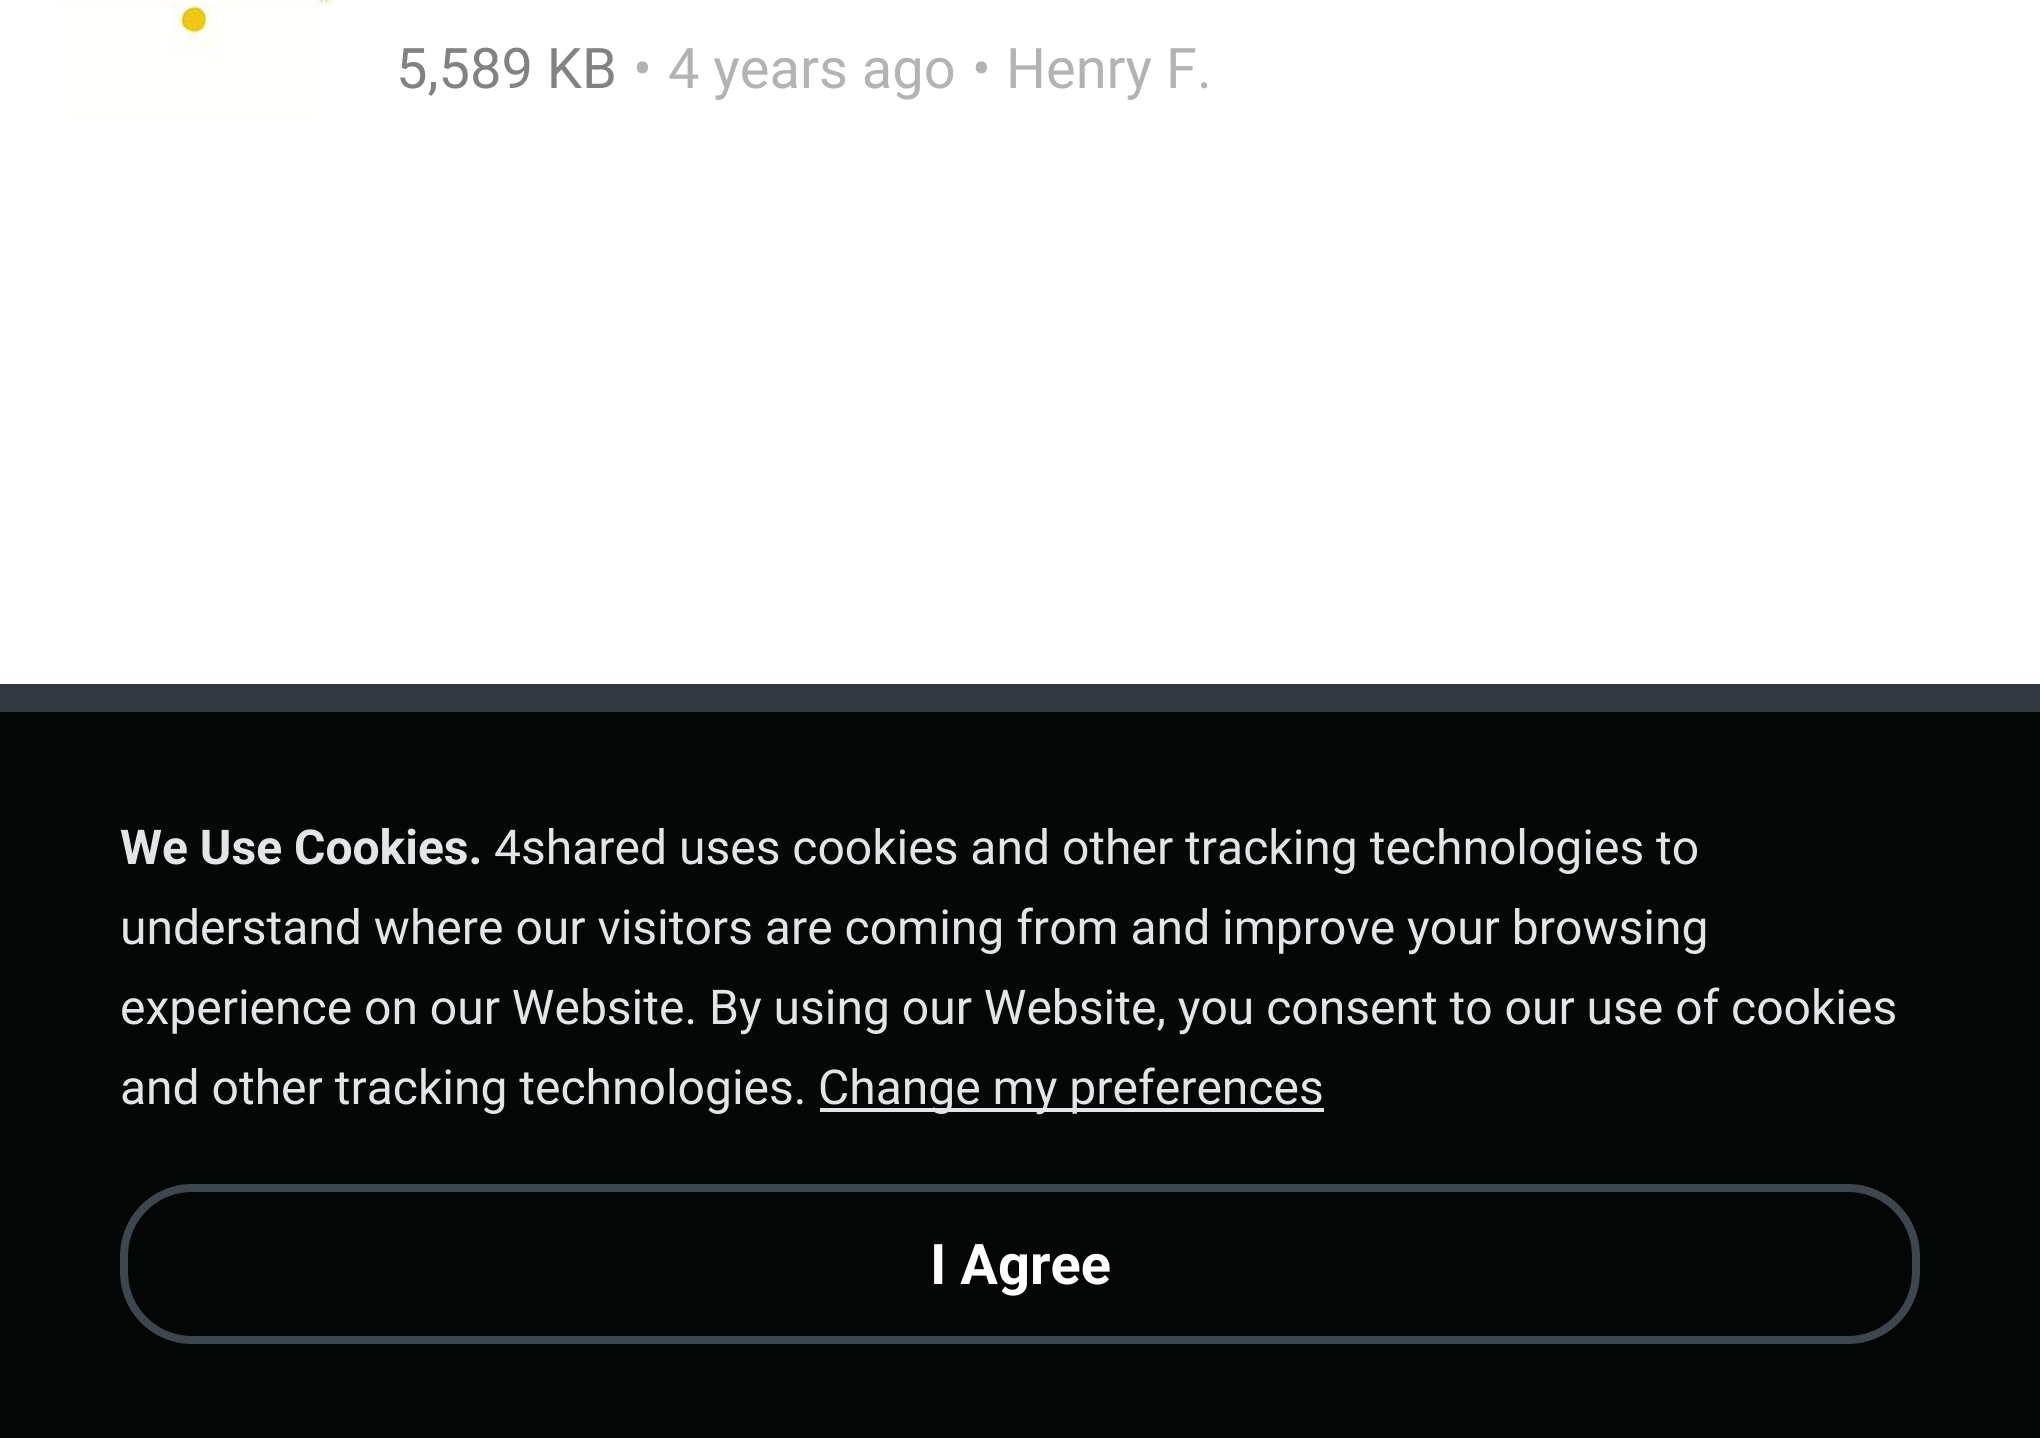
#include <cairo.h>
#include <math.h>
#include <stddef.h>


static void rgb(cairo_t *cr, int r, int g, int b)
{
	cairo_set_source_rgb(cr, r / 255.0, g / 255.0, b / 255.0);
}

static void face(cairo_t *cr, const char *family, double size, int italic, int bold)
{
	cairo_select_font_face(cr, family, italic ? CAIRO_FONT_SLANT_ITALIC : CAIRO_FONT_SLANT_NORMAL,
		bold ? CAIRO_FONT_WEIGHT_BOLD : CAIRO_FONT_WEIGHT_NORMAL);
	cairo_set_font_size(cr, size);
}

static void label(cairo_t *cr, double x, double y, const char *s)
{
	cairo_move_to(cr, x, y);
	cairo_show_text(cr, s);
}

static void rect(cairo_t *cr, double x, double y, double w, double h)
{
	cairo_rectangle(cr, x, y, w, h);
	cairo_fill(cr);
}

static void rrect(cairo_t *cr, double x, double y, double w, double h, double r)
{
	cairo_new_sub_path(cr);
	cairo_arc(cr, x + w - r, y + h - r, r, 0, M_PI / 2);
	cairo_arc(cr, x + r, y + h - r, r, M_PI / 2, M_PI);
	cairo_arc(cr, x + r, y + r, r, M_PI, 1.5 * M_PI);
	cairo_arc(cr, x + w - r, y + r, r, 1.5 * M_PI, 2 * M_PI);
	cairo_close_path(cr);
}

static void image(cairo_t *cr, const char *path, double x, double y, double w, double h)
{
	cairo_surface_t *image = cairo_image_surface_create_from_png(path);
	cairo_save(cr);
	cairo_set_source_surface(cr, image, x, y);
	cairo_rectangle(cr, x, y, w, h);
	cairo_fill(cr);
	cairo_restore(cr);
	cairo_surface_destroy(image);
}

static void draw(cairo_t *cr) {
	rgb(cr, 255, 255, 255);
	cairo_paint(cr);
	image(cr, "image0.png", 60, 0, 272, 156);
	face(cr, "Roboto", 56, 0, 0);
	rgb(cr, 130, 130, 130);
	label(cr, 396, 88, "5,589 KB");
	rgb(cr, 179, 179, 179);
	label(cr, 633, 88, "•");
	label(cr, 668, 88, "4 years ago");
	label(cr, 972, 88, "•");
	label(cr, 1006, 88, "Henry F.");
	rgb(cr, 49, 56, 62);
	rect(cr, 0, 684, 2040, 28);
	rgb(cr, 5, 6, 6);
	rect(cr, 0, 712, 2040, 726);
	face(cr, "Roboto", 48, 0, 1);
	rgb(cr, 226, 229, 231);
	label(cr, 120, 864, "We Use Cookies.");
	face(cr, "Roboto", 48, 0, 0);
	label(cr, 494, 864, "4shared uses cookies and other tracking technologies to");
	label(cr, 120, 944, "understand where our visitors are coming from and improve your browsing");
	label(cr, 120, 1024, "experience on our Website. By using our Website, you consent to our use of cookies");
	label(cr, 120, 1104, "and other tracking technologies.");
	rect(cr, 820, 1108, 504, 4);
	label(cr, 818, 1104, "Change my preferences");
	rrect(cr, 124, 1188, 1792, 152, 68);
	rgb(cr, 62, 70, 78);
	cairo_set_line_width(cr, 8);
	cairo_stroke(cr);
	face(cr, "Roboto", 56, 0, 1);
	rgb(cr, 255, 255, 255);
	label(cr, 930, 1284, "I Agree");
}

int main(void) {
	cairo_surface_t *surface = cairo_image_surface_create(CAIRO_FORMAT_RGB24, 2040, 1438);
	cairo_t *cr = cairo_create(surface);
	cairo_font_options_t *options = cairo_font_options_create();
	cairo_font_options_set_hint_metrics(options, CAIRO_HINT_METRICS_OFF);
	cairo_font_options_set_hint_style(options, CAIRO_HINT_STYLE_NONE);
	cairo_set_font_options(cr, options);
	cairo_set_miter_limit(cr, 4);
	draw(cr);
	cairo_surface_write_to_png(surface, "render.png");
	cairo_font_options_destroy(options);
	cairo_destroy(cr);
	cairo_surface_destroy(surface);
	return 0;
}
